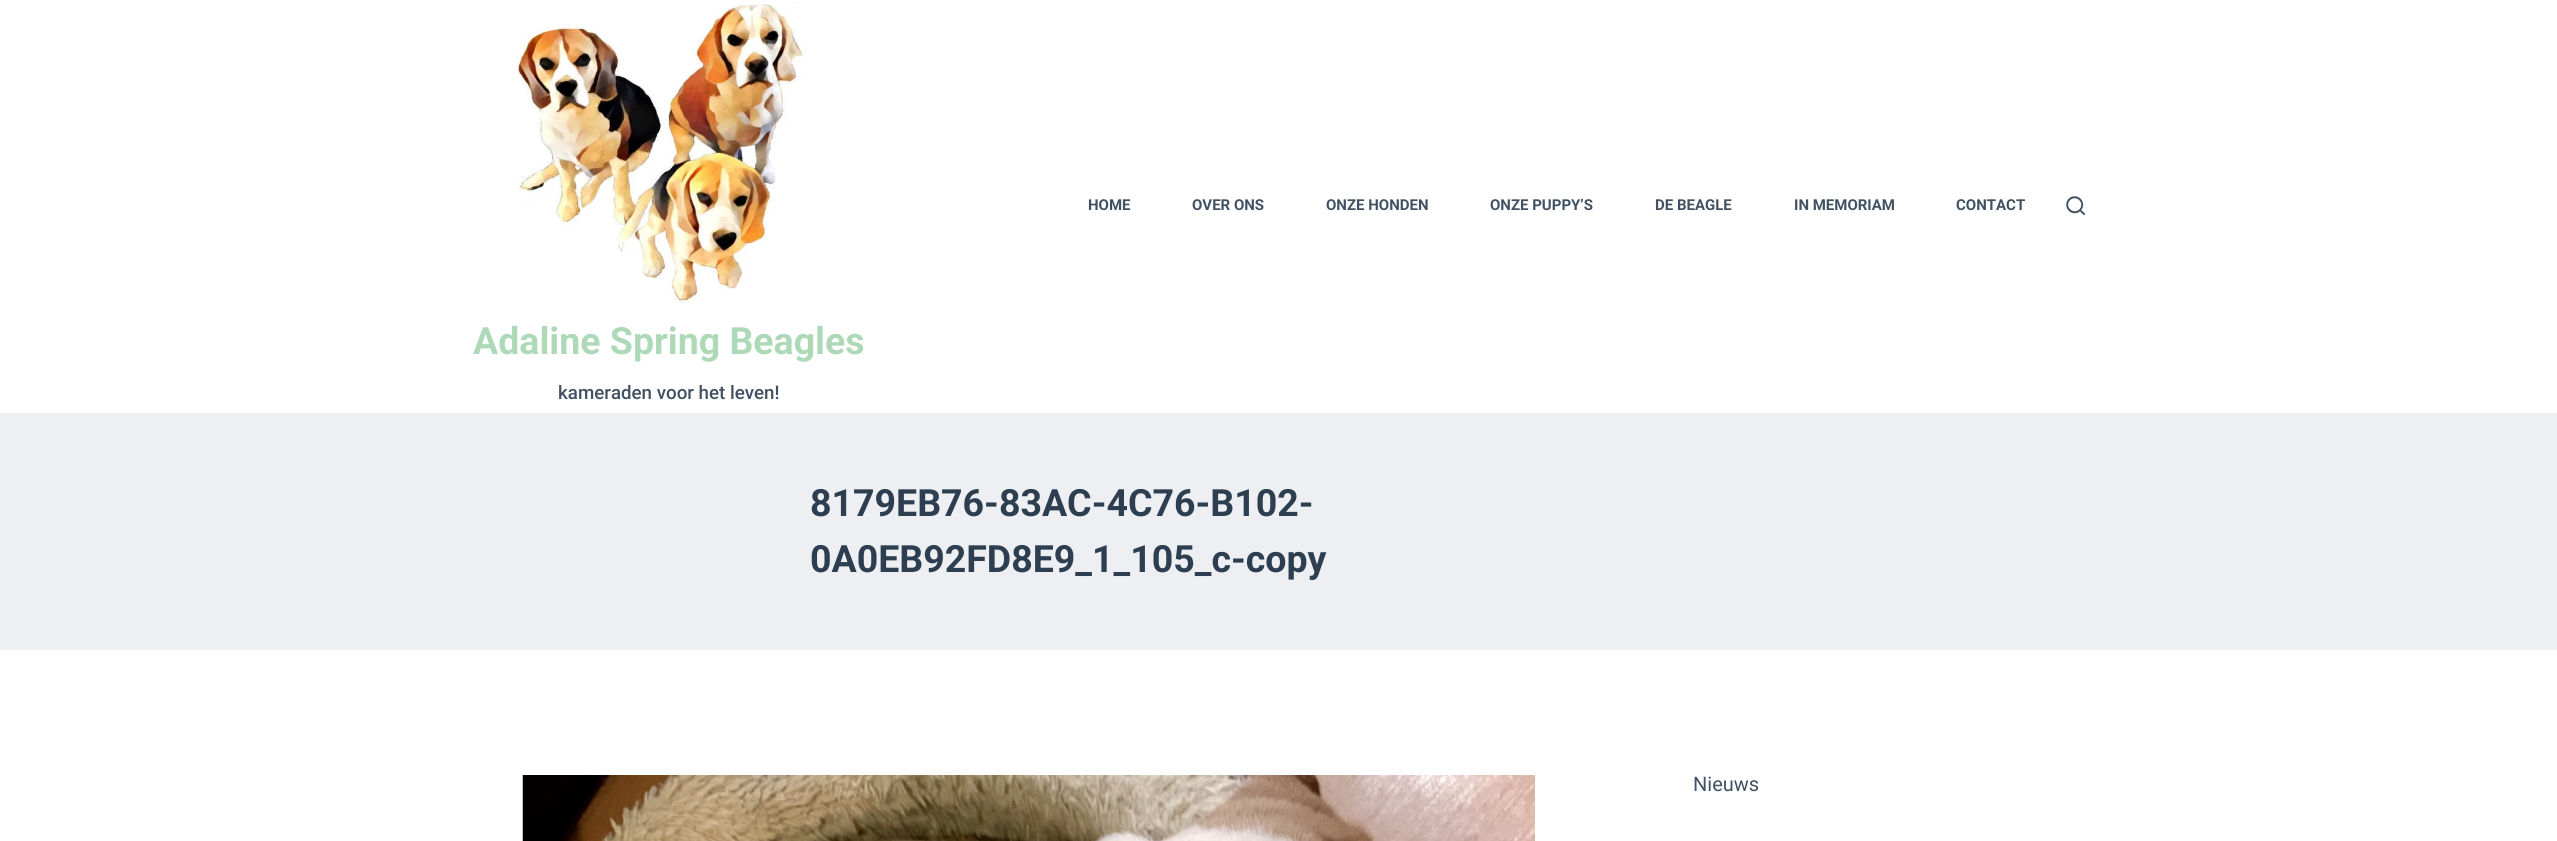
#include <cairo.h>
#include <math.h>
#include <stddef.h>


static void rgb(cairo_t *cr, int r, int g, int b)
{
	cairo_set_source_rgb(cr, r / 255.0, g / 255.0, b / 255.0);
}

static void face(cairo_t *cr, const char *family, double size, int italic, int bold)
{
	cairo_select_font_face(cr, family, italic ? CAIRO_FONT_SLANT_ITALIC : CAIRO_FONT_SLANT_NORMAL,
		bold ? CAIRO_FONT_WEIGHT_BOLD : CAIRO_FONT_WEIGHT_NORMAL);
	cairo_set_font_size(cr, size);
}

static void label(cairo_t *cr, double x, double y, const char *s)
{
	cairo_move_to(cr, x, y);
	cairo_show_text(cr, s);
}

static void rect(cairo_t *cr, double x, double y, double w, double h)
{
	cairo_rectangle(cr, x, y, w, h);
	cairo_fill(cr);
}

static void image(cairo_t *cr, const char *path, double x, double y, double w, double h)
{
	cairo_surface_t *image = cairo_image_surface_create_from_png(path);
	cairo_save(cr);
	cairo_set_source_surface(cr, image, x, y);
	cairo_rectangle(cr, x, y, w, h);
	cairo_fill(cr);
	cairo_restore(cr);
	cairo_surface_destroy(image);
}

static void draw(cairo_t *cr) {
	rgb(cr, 255, 255, 255);
	cairo_paint(cr);
	face(cr, "Roboto", 15, 0, 1);
	rgb(cr, 65, 81, 97);
	label(cr, 1088, 210, "HOME");
	label(cr, 1192, 210, "OVER ONS");
	label(cr, 1326, 210, "ONZE HONDEN");
	label(cr, 1490, 210, "ONZE PUPPY’S");
	label(cr, 1655, 210, "DE BEAGLE");
	label(cr, 1794, 210, "IN MEMORIAM");
	label(cr, 1956, 210, "CONTACT");
	image(cr, "image0.png", 2066, 196, 19, 19);
	image(cr, "image1.png", 517, 1, 289, 302);
	face(cr, "Roboto", 37.5, 0, 1);
	rgb(cr, 173, 217, 185);
	label(cr, 473, 354, "Adaline Spring Beagles");
	face(cr, "Roboto Medium", 18.75, 0, 0);
	rgb(cr, 65, 81, 97);
	label(cr, 558, 399, "kameraden voor het leven!");
	rgb(cr, 237, 239, 242);
	rect(cr, 0, 413, 2557, 237);
	face(cr, "Roboto", 37.5, 0, 1);
	rgb(cr, 44, 62, 80);
	label(cr, 810, 516, "8179EB76-83AC-4C76-B102-");
	label(cr, 810, 572, "0A0EB92FD8E9_1_105_c-copy");
	image(cr, "image2.png", 522, 775, 1013, 66);
	face(cr, "Roboto", 20, 0, 0);
	rgb(cr, 65, 81, 97);
	label(cr, 1693, 791, "Nieuws");
}

int main(void) {
	cairo_surface_t *surface = cairo_image_surface_create(CAIRO_FORMAT_RGB24, 2557, 841);
	cairo_t *cr = cairo_create(surface);
	cairo_font_options_t *options = cairo_font_options_create();
	cairo_font_options_set_hint_metrics(options, CAIRO_HINT_METRICS_OFF);
	cairo_font_options_set_hint_style(options, CAIRO_HINT_STYLE_NONE);
	cairo_set_font_options(cr, options);
	cairo_set_miter_limit(cr, 4);
	draw(cr);
	cairo_surface_write_to_png(surface, "render.png");
	cairo_font_options_destroy(options);
	cairo_destroy(cr);
	cairo_surface_destroy(surface);
	return 0;
}
